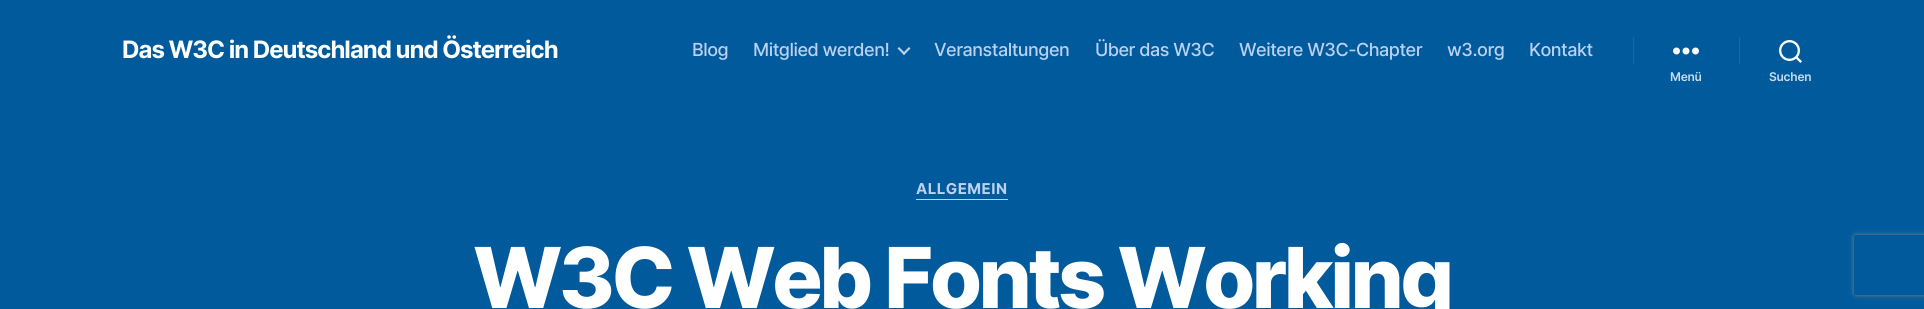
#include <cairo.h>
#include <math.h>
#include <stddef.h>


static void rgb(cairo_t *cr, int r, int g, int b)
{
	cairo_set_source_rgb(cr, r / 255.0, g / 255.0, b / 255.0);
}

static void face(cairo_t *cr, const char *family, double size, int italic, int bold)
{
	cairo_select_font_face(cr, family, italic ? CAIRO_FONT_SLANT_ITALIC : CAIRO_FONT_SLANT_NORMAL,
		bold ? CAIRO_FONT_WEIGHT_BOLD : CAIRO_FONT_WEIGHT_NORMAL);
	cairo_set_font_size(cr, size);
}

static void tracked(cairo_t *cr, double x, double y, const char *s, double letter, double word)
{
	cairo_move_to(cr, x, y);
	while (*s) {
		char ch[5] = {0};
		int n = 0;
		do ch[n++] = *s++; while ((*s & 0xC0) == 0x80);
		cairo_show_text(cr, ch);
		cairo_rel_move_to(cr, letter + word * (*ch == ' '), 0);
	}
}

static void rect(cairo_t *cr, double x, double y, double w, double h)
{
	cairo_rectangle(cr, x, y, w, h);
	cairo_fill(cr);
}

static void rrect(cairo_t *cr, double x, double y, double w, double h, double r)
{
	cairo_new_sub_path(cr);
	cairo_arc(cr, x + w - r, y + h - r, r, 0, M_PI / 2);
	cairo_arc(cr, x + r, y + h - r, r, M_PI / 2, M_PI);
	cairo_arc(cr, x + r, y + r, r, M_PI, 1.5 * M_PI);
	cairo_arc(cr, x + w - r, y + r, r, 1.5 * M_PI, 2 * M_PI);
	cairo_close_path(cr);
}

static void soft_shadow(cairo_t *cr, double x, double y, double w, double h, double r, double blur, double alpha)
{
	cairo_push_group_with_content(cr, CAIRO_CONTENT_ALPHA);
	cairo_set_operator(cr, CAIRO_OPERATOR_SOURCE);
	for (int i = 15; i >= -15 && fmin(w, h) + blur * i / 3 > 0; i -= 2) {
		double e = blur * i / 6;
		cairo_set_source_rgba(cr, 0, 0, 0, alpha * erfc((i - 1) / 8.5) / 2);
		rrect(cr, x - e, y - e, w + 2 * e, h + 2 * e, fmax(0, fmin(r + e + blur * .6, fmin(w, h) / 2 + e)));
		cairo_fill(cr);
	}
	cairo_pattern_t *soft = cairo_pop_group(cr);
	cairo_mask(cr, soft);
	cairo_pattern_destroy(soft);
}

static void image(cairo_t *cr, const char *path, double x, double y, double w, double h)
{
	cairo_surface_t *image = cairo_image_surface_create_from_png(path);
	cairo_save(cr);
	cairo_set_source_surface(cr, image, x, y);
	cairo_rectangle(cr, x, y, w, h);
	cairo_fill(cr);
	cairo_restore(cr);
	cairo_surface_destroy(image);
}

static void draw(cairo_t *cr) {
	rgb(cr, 0, 90, 156);
	cairo_paint(cr);
	face(cr, "Inter", 24, 0, 1);
	rgb(cr, 255, 255, 255);
	tracked(cr, 122, 58, "Das W3C in Deutschland und Österreich", -1, 0);
	face(cr, "Inter Medium", 18, 0, 0);
	rgb(cr, 189, 209, 239);
	tracked(cr, 692, 56, "Blog", -0.5, 0);
	tracked(cr, 753, 56, "Mitglied werden!", -0.5, 0);
	cairo_new_path(cr);
	cairo_move_to(cr, 897.5, 48.5);
	cairo_line_to(cr, 899, 47);
	cairo_line_to(cr, 905.5, 53.5);
	cairo_line_to(cr, 904, 55);
	cairo_close_path(cr);
	cairo_fill(cr);
	cairo_new_path(cr);
	cairo_move_to(cr, 902.5, 53.5);
	cairo_line_to(cr, 909, 47);
	cairo_line_to(cr, 910.5, 48.5);
	cairo_line_to(cr, 904, 55);
	cairo_close_path(cr);
	cairo_fill(cr);
	tracked(cr, 934, 56, "Veranstaltungen", -0.5, 0);
	tracked(cr, 1095, 56, "Über das W3C", -0.5, 0);
	tracked(cr, 1239, 56, "Weitere W3C-Chapter", -0.5, 0);
	tracked(cr, 1447, 56, "w3.org", -0.5, 0);
	tracked(cr, 1529, 56, "Kontakt", -0.5, 0);
	rgb(cr, 0, 113, 193);
	rect(cr, 1633, 37, 1, 27);
	image(cr, "image0.png", 1673, 47, 26, 8);
	face(cr, "Inter SemiBold", 12, 0, 0);
	rgb(cr, 201, 221, 237);
	tracked(cr, 1670, 81, "Menü", -0.25, 0);
	rgb(cr, 0, 113, 193);
	rect(cr, 1739, 37, 1, 27);
	image(cr, "image1.png", 1779, 40, 23, 23);
	rgb(cr, 201, 221, 237);
	tracked(cr, 1769, 81, "Suchen", -0.25, 0);
	rgb(cr, 189, 209, 239);
	rect(cr, 916, 199, 92, 1);
	face(cr, "Inter", 15, 0, 1);
	tracked(cr, 916, 194, "ALLGEMEIN", 0.5, 0);
	face(cr, "Inter ExtraBold", 84, 0, 0);
	rgb(cr, 255, 255, 255);
	tracked(cr, 473, 308, "W3C Web Fonts Working", -3.5, 0);
	cairo_save(cr);
	cairo_set_fill_rule(cr, CAIRO_FILL_RULE_EVEN_ODD);
	cairo_new_path(cr);
	cairo_move_to(cr, 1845, 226);
	cairo_line_to(cr, 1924, 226);
	cairo_line_to(cr, 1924, 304);
	cairo_line_to(cr, 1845, 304);
	cairo_close_path(cr);
	cairo_move_to(cr, 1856, 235);
	cairo_line_to(cr, 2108, 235);
	cairo_curve_to(cr, 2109, 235, 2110, 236, 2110, 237);
	cairo_line_to(cr, 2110, 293);
	cairo_curve_to(cr, 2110, 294, 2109, 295, 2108, 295);
	cairo_line_to(cr, 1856, 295);
	cairo_curve_to(cr, 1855, 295, 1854, 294, 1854, 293);
	cairo_line_to(cr, 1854, 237);
	cairo_curve_to(cr, 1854, 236, 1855, 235, 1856, 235);
	cairo_close_path(cr);
	cairo_clip(cr);
	rgb(cr, 128, 128, 128);
	soft_shadow(cr, 1854, 235, 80, 60, 2, 2.5, 1);
	cairo_restore(cr);
}

int main(void) {
	cairo_surface_t *surface = cairo_image_surface_create(CAIRO_FORMAT_RGB24, 1924, 309);
	cairo_t *cr = cairo_create(surface);
	cairo_font_options_t *options = cairo_font_options_create();
	cairo_font_options_set_hint_metrics(options, CAIRO_HINT_METRICS_OFF);
	cairo_font_options_set_hint_style(options, CAIRO_HINT_STYLE_NONE);
	cairo_set_font_options(cr, options);
	cairo_set_miter_limit(cr, 4);
	draw(cr);
	cairo_surface_write_to_png(surface, "render.png");
	cairo_font_options_destroy(options);
	cairo_destroy(cr);
	cairo_surface_destroy(surface);
	return 0;
}
